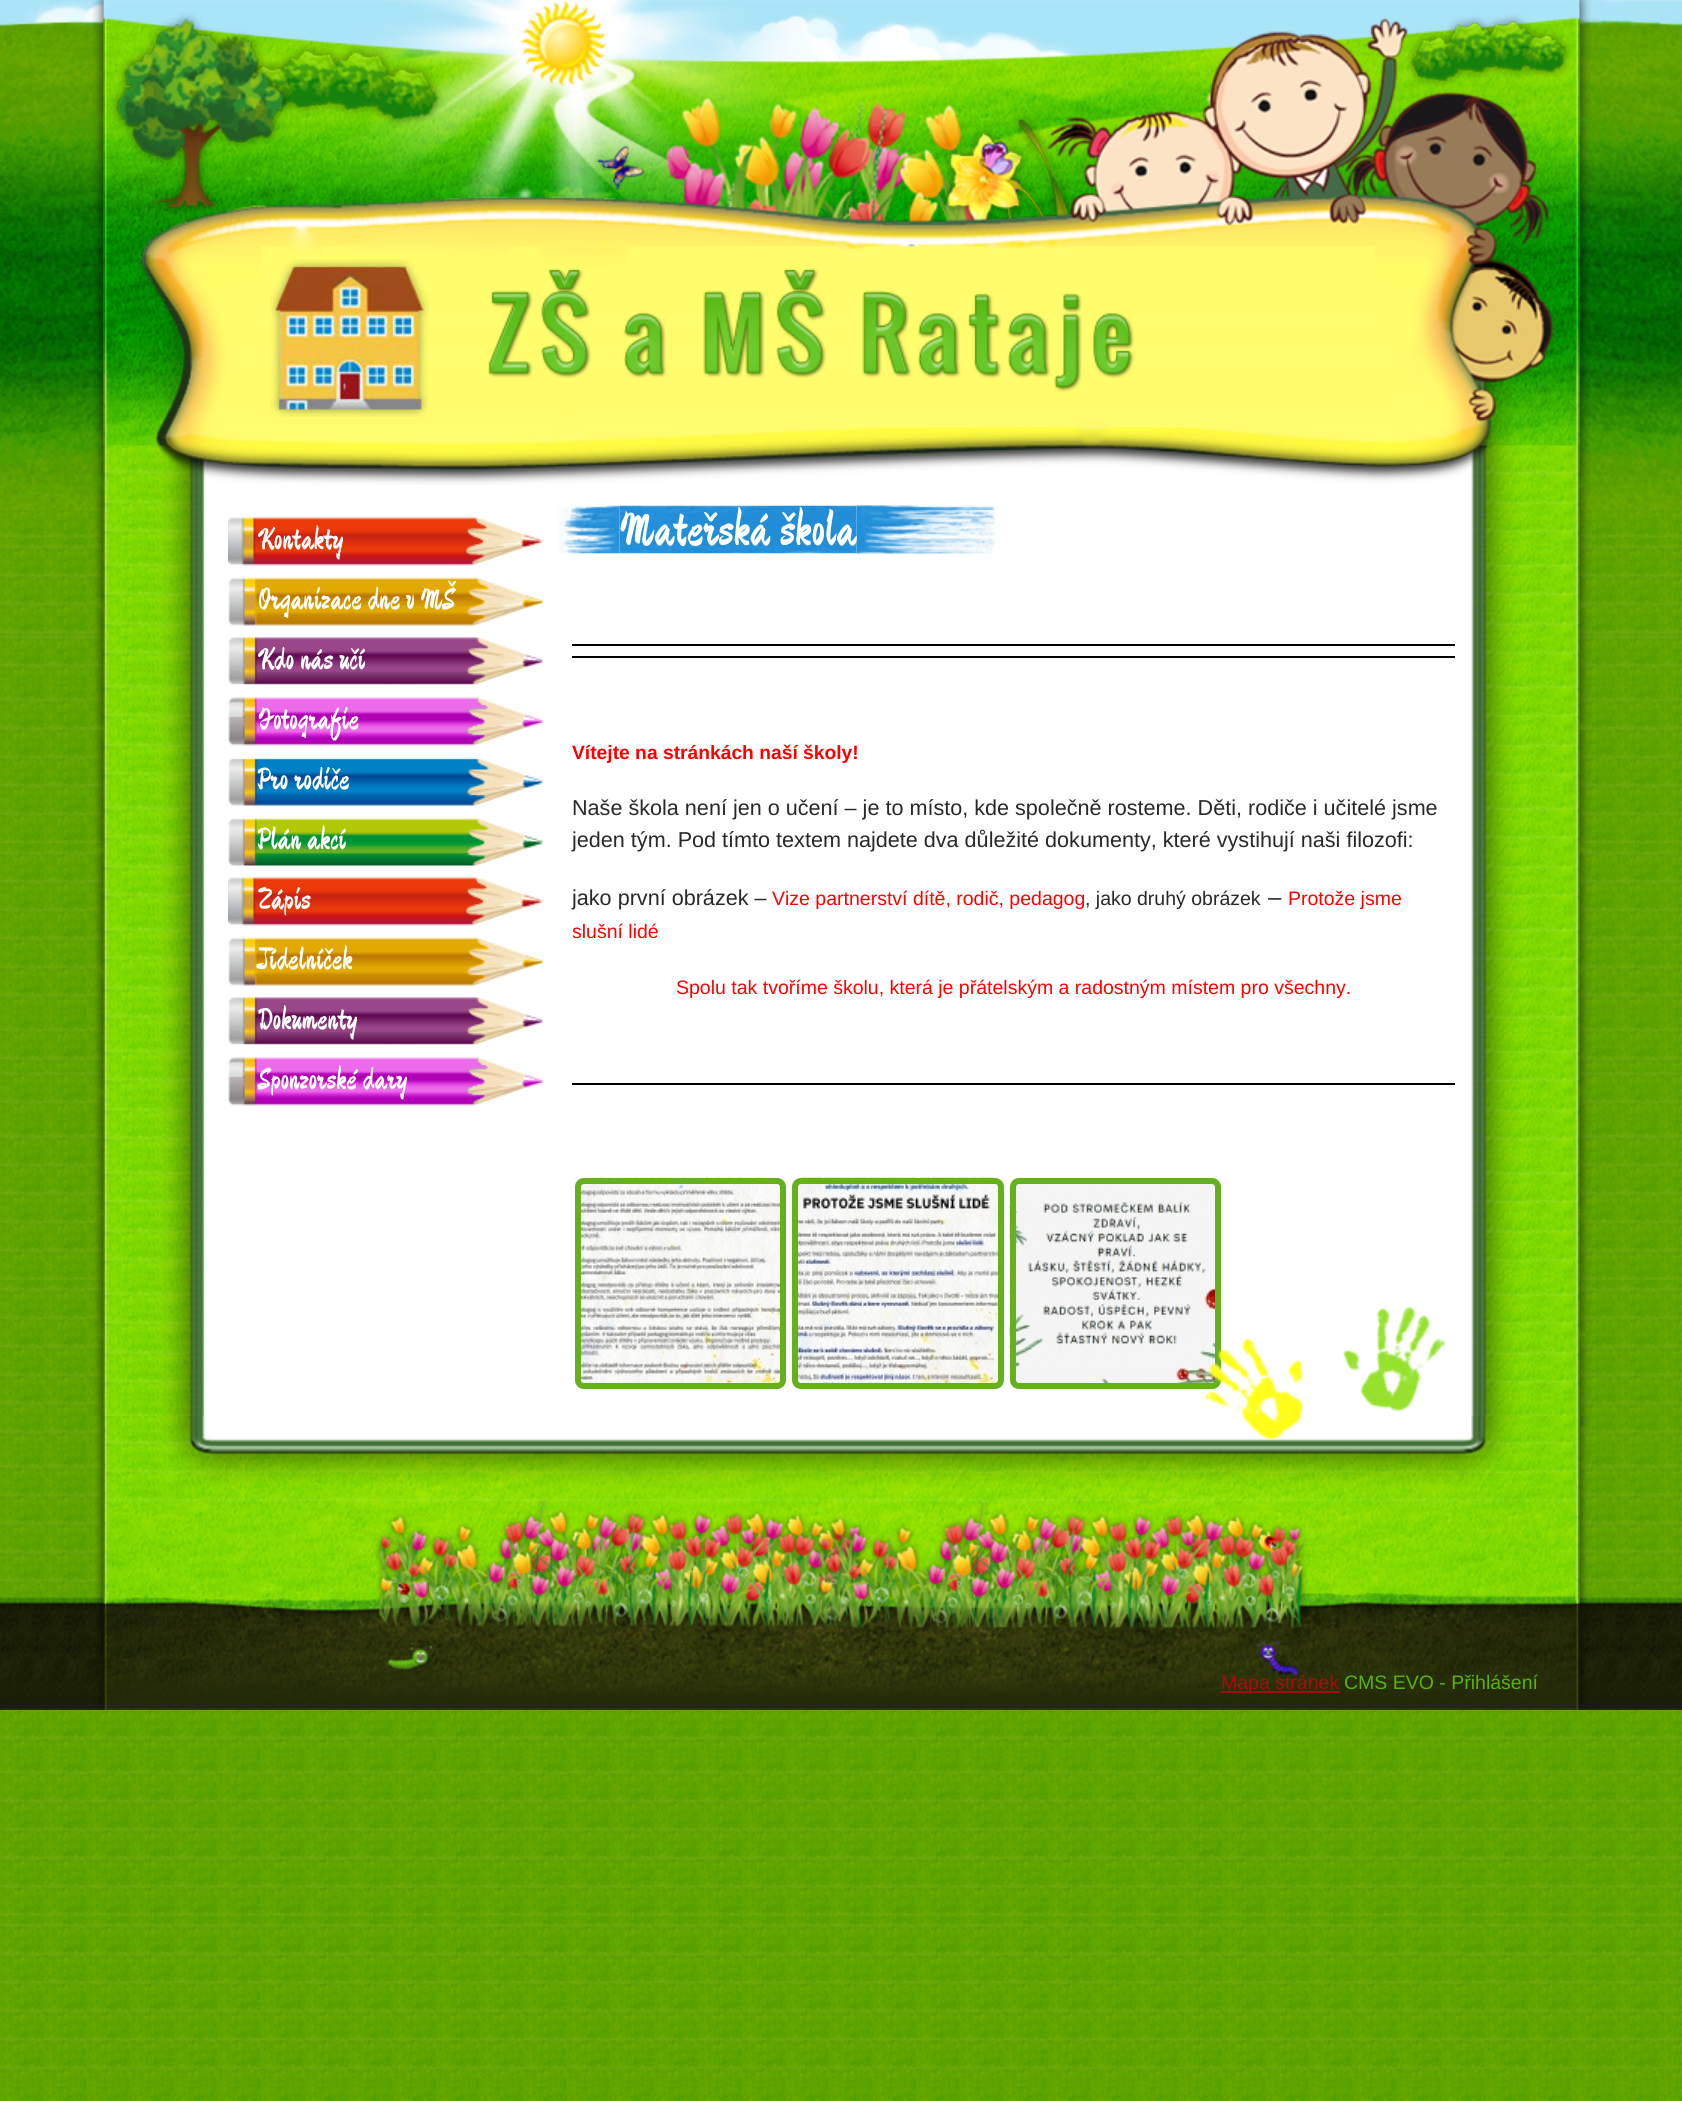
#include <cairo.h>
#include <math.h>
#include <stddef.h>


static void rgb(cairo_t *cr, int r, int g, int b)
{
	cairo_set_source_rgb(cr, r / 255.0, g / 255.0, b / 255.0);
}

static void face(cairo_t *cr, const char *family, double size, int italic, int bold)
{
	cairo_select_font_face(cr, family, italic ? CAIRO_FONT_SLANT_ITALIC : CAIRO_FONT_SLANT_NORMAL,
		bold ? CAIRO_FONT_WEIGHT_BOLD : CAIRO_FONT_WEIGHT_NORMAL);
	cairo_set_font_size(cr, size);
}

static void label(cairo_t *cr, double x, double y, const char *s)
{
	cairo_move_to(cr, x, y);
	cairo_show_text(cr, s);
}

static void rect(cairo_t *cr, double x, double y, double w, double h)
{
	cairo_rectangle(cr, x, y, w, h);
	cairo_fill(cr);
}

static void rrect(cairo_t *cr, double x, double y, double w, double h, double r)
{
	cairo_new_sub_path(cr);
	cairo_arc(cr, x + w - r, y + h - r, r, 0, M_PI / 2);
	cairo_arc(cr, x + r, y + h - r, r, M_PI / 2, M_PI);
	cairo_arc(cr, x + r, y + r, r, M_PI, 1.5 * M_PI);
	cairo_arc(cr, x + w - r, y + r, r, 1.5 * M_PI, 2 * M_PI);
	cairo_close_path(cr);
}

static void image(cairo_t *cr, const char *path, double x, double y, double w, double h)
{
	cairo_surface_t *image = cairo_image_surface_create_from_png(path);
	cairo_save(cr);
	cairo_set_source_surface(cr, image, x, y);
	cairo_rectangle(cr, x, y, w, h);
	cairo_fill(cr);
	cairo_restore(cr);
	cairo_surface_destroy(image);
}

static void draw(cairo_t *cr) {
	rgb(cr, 255, 255, 255);
	cairo_paint(cr);
	image(cr, "image0.png", 0, 510, 1682, 1591);
	image(cr, "image1.png", 0, 0, 1682, 510);
	image(cr, "image2.png", 92, 0, 1499, 1416);
	image(cr, "image3.png", 103, 0, 1477, 485);
	image(cr, "image4.png", 270, 259, 159, 158);
	image(cr, "image5.png", 228, 517, 315, 49);
	face(cr, "Devonshire", 30.25, 0, 0);
	rgb(cr, 255, 255, 255);
	label(cr, 258, 549, "Kontakty");
	image(cr, "image6.png", 228, 577, 315, 49);
	label(cr, 258, 609, "Organizace dne v MŠ");
	image(cr, "image7.png", 228, 637, 315, 48);
	label(cr, 258, 669, "Kdo nás učí");
	image(cr, "image8.png", 228, 697, 315, 49);
	label(cr, 258, 729, "Fotografie");
	image(cr, "image9.png", 228, 758, 315, 48);
	label(cr, 258, 789, "Pro rodiče");
	image(cr, "image10.png", 228, 818, 315, 48);
	label(cr, 258, 849, "Plán akcí");
	image(cr, "image5.png", 228, 877, 315, 49);
	label(cr, 258, 909, "Zápis");
	image(cr, "image6.png", 228, 937, 315, 49);
	label(cr, 258, 969, "Jídelníček");
	image(cr, "image7.png", 228, 997, 315, 48);
	label(cr, 258, 1029, "Dokumenty");
	image(cr, "image8.png", 228, 1057, 315, 49);
	label(cr, 258, 1089, "Sponzorské dary");
	image(cr, "image11.png", 856, 505, 140, 49);
	image(cr, "image13.png", 619, 505, 238, 49);
	image(cr, "image12.png", 557, 505, 63, 49);
	face(cr, "Devonshire", 48, 0, 0);
	label(cr, 620, 545, "Mateřská škola");
	rgb(cr, 0, 0, 0);
	rect(cr, 572, 644, 883, 2);
	rect(cr, 572, 656, 883, 2);
	face(cr, "Liberation Sans", 19.25, 0, 1);
	rgb(cr, 255, 0, 0);
	label(cr, 572, 759, "Vítejte na stránkách naší školy!");
	face(cr, "Liberation Sans", 21.6, 0, 0);
	rgb(cr, 40, 40, 40);
	label(cr, 572, 815, "Naše škola není jen o učení – je to místo, kde společně rosteme. Děti, rodiče i učitelé jsme");
	label(cr, 572, 847, "jeden tým. Pod tímto textem najdete dva důležité dokumenty, které vystihují naši filozofi:");
	label(cr, 572, 905, "jako první obrázek –");
	face(cr, "Liberation Sans", 19.5, 0, 0);
	rgb(cr, 255, 0, 0);
	label(cr, 772, 905, "Vize partnerství dítě, rodič, pedagog");
	rgb(cr, 40, 40, 40);
	label(cr, 1085, 905, ", jako druhý obrázek");
	face(cr, "Liberation Sans", 24, 0, 0);
	label(cr, 1268, 905, "–");
	face(cr, "Liberation Sans", 19.5, 0, 0);
	rgb(cr, 255, 0, 0);
	label(cr, 1288, 905, "Protože jsme");
	label(cr, 572, 938, "slušní lidé");
	label(cr, 676, 994, "Spolu tak tvoříme školu, která je přátelským a radostným místem pro všechny.");
	rgb(cr, 0, 0, 0);
	rect(cr, 572, 1083, 883, 2);
	image(cr, "image14.png", 574, 1177, 212, 212);
	rrect(cr, 578, 1181, 205, 205, 6);
	rgb(cr, 101, 177, 28);
	cairo_set_line_width(cr, 6);
	cairo_stroke(cr);
	image(cr, "image15.png", 792, 1177, 212, 212);
	rrect(cr, 795, 1181, 206, 205, 6);
	cairo_stroke(cr);
	image(cr, "image16.png", 1009, 1177, 212, 212);
	rrect(cr, 1013, 1181, 205, 205, 6);
	cairo_stroke(cr);
	image(cr, "image17.png", 0, 1597, 1682, 113);
	image(cr, "image18.png", 94, 1416, 1496, 294);
	image(cr, "image19.png", 1204, 1338, 100, 103);
	image(cr, "image20.png", 1342, 1306, 104, 106);
	rgb(cr, 172, 9, 14);
	rect(cr, 1221, 1691, 119, 2);
	label(cr, 1221, 1689, "Mapa stránek");
	rgb(cr, 85, 180, 14);
	label(cr, 1344, 1689, "CMS EVO - Přihlášení");
}

int main(void) {
	cairo_surface_t *surface = cairo_image_surface_create(CAIRO_FORMAT_RGB24, 1682, 2101);
	cairo_t *cr = cairo_create(surface);
	cairo_font_options_t *options = cairo_font_options_create();
	cairo_font_options_set_hint_metrics(options, CAIRO_HINT_METRICS_OFF);
	cairo_font_options_set_hint_style(options, CAIRO_HINT_STYLE_NONE);
	cairo_set_font_options(cr, options);
	cairo_set_miter_limit(cr, 4);
	draw(cr);
	cairo_surface_write_to_png(surface, "render.png");
	cairo_font_options_destroy(options);
	cairo_destroy(cr);
	cairo_surface_destroy(surface);
	return 0;
}
